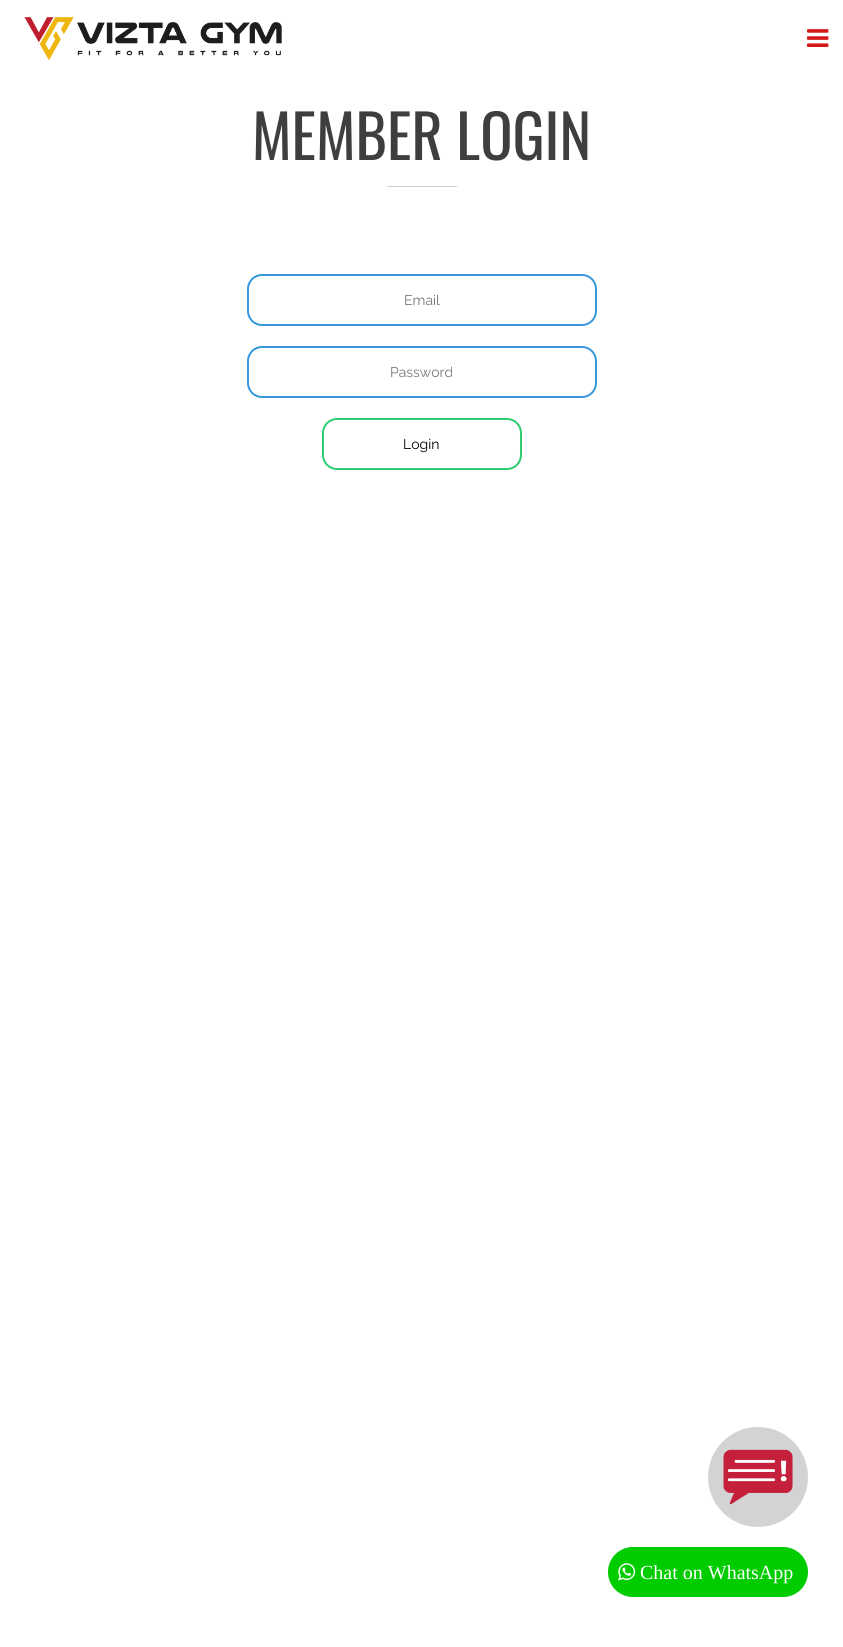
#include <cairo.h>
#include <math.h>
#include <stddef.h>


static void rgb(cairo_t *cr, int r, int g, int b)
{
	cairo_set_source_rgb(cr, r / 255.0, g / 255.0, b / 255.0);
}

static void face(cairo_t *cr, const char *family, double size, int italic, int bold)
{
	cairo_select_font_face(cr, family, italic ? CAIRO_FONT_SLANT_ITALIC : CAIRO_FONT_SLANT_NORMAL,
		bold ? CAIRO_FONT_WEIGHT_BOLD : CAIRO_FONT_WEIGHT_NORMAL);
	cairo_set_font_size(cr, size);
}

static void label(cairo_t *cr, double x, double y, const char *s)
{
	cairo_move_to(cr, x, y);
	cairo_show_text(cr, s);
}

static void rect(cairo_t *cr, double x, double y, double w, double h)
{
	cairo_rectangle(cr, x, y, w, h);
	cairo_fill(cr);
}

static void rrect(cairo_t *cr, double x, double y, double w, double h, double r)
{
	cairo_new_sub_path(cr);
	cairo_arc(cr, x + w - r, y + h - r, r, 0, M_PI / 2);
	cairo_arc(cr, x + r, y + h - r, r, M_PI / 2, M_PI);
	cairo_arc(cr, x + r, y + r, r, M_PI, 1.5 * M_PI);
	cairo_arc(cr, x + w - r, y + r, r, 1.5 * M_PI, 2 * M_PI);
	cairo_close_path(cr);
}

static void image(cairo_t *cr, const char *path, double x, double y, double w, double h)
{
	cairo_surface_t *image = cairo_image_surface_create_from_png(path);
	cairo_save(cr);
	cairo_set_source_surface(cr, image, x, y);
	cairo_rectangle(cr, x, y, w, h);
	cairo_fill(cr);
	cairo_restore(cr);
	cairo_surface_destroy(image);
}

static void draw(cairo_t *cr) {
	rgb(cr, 255, 255, 255);
	cairo_paint(cr);
	image(cr, "image0.png", 24, 17, 258, 43);
	image(cr, "image1.png", 807, 29, 22, 18);
	face(cr, "Oswald", 60, 0, 0);
	rgb(cr, 62, 62, 62);
	label(cr, 252, 160, "MEMBER LOGIN");
	rgb(cr, 208, 208, 208);
	rect(cr, 387, 186, 70, 1);
	rrect(cr, 248, 275, 348, 50, 14);
	rgb(cr, 52, 152, 219);
	cairo_stroke(cr);
	face(cr, "Raleway", 14, 0, 0);
	rgb(cr, 117, 117, 117);
	label(cr, 404, 305, "Email");
	rrect(cr, 248, 347, 348, 50, 14);
	rgb(cr, 52, 152, 219);
	cairo_stroke(cr);
	rgb(cr, 117, 117, 117);
	label(cr, 390, 377, "Password");
	rrect(cr, 323, 419, 198, 50, 14);
	rgb(cr, 46, 204, 113);
	cairo_stroke(cr);
	rgb(cr, 0, 0, 0);
	label(cr, 403, 449, "Login");
	rgb(cr, 211, 211, 211);
	cairo_new_path(cr);
	cairo_arc(cr, 758, 1477, 50, 0, 2 * M_PI);
	cairo_fill(cr);
	image(cr, "image2.png", 723, 1449, 70, 56);
	rgb(cr, 0, 204, 0);
	rrect(cr, 608, 1547, 200, 50, 25);
	cairo_fill(cr);
	image(cr, "image3.png", 618, 1563, 18, 18);
	face(cr, "Liberation Serif", 20, 0, 0);
	rgb(cr, 255, 255, 255);
	label(cr, 640, 1579, "Chat on WhatsApp");
}

int main(void) {
	cairo_surface_t *surface = cairo_image_surface_create(CAIRO_FORMAT_RGB24, 843, 1647);
	cairo_t *cr = cairo_create(surface);
	cairo_font_options_t *options = cairo_font_options_create();
	cairo_font_options_set_hint_metrics(options, CAIRO_HINT_METRICS_OFF);
	cairo_font_options_set_hint_style(options, CAIRO_HINT_STYLE_NONE);
	cairo_set_font_options(cr, options);
	cairo_set_miter_limit(cr, 4);
	draw(cr);
	cairo_surface_write_to_png(surface, "render.png");
	cairo_font_options_destroy(options);
	cairo_destroy(cr);
	cairo_surface_destroy(surface);
	return 0;
}
